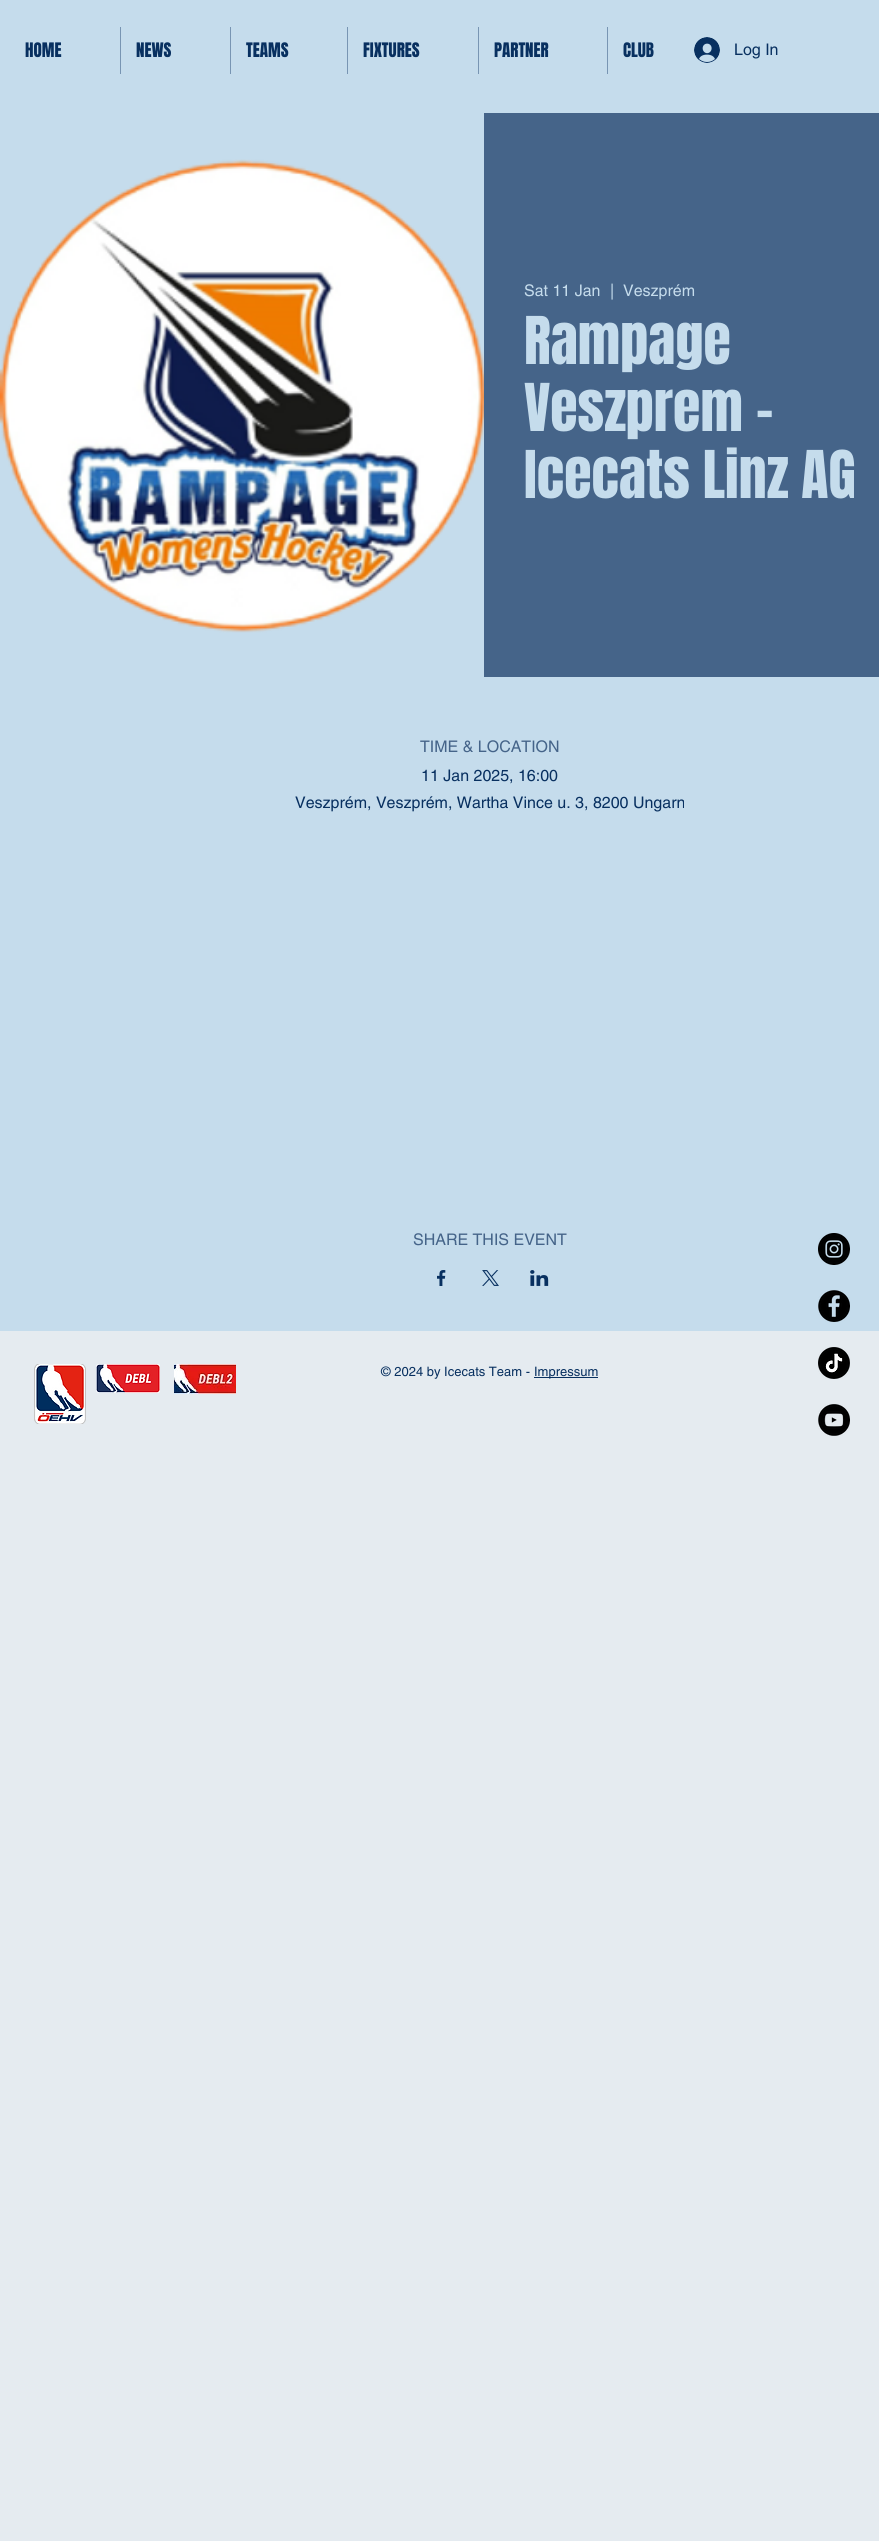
#include <cairo.h>
#include <math.h>
#include <stddef.h>


static void rgb(cairo_t *cr, int r, int g, int b)
{
	cairo_set_source_rgb(cr, r / 255.0, g / 255.0, b / 255.0);
}

static void face(cairo_t *cr, const char *family, double size, int italic, int bold)
{
	cairo_select_font_face(cr, family, italic ? CAIRO_FONT_SLANT_ITALIC : CAIRO_FONT_SLANT_NORMAL,
		bold ? CAIRO_FONT_WEIGHT_BOLD : CAIRO_FONT_WEIGHT_NORMAL);
	cairo_set_font_size(cr, size);
}

static void label(cairo_t *cr, double x, double y, const char *s)
{
	cairo_move_to(cr, x, y);
	cairo_show_text(cr, s);
}

static void rect(cairo_t *cr, double x, double y, double w, double h)
{
	cairo_rectangle(cr, x, y, w, h);
	cairo_fill(cr);
}

static void image(cairo_t *cr, const char *path, double x, double y, double w, double h)
{
	cairo_surface_t *image = cairo_image_surface_create_from_png(path);
	cairo_save(cr);
	cairo_set_source_surface(cr, image, x, y);
	cairo_rectangle(cr, x, y, w, h);
	cairo_fill(cr);
	cairo_restore(cr);
	cairo_surface_destroy(image);
}

static void draw(cairo_t *cr) {
	rgb(cr, 229, 235, 240);
	cairo_paint(cr);
	rgb(cr, 197, 220, 236);
	rect(cr, 0, 0, 879, 1331);
	face(cr, "Anton", 17, 0, 0);
	rgb(cr, 8, 48, 96);
	label(cr, 25, 57, "HOME");
	rgb(cr, 120, 149, 179);
	rect(cr, 120, 27, 1, 47);
	rgb(cr, 8, 48, 96);
	label(cr, 136, 57, "NEWS");
	rgb(cr, 120, 149, 179);
	rect(cr, 230, 27, 1, 47);
	rgb(cr, 8, 48, 96);
	label(cr, 246, 57, "TEAMS");
	rgb(cr, 120, 149, 179);
	rect(cr, 347, 27, 1, 47);
	rgb(cr, 8, 48, 96);
	label(cr, 363, 57, "FIXTURES");
	rgb(cr, 120, 149, 179);
	rect(cr, 478, 27, 1, 47);
	rgb(cr, 8, 48, 96);
	label(cr, 494, 57, "PARTNER");
	rgb(cr, 120, 149, 179);
	rect(cr, 607, 27, 1, 47);
	rgb(cr, 8, 48, 96);
	label(cr, 623, 57, "CLUB");
	image(cr, "image0.png", 694, 37, 26, 26);
	face(cr, "helvetica", 16, 0, 0);
	label(cr, 734, 55, "Log In");
	image(cr, "image1.png", 0, 159, 484, 474);
	rgb(cr, 69, 100, 137);
	rect(cr, 484, 113, 395, 564);
	rgb(cr, 197, 220, 236);
	label(cr, 524, 296, "Sat 11 Jan");
	label(cr, 610, 296, "|");
	label(cr, 623, 296, "Veszprém");
	face(cr, "Anton", 56, 0, 0);
	label(cr, 524, 364, "Rampage");
	label(cr, 524, 431, "Veszprem -");
	label(cr, 524, 498, "Icecats Linz AG");
	face(cr, "helvetica", 16, 0, 0);
	rgb(cr, 69, 100, 137);
	label(cr, 420, 752, "TIME & LOCATION");
	rgb(cr, 8, 48, 96);
	label(cr, 421, 781, "11 Jan 2025, 16:00");
	label(cr, 295, 808, "Veszprém, Veszprém, Wartha Vince u. 3, 8200 Ungarn");
	rgb(cr, 69, 100, 137);
	label(cr, 413, 1245, "SHARE THIS EVENT");
	image(cr, "image2.png", 437, 1270, 9, 16);
	image(cr, "image3.png", 482, 1270, 17, 16);
	image(cr, "image4.png", 530, 1270, 19, 16);
	image(cr, "image5.png", 34, 1364, 52, 60);
	image(cr, "image6.png", 96, 1364, 64, 29);
	image(cr, "image7.png", 174, 1364, 62, 30);
	face(cr, "helvetica", 13, 0, 0);
	rgb(cr, 8, 48, 96);
	label(cr, 381, 1376, "© 2024 by Icecats Team -");
	rect(cr, 534, 1377, 64, 1);
	label(cr, 534, 1376, "Impressum");
	image(cr, "image8.png", 818, 1233, 32, 32);
	image(cr, "image9.png", 818, 1290, 32, 32);
	image(cr, "image10.png", 818, 1347, 32, 32);
	image(cr, "image11.png", 818, 1404, 32, 32);
}

int main(void) {
	cairo_surface_t *surface = cairo_image_surface_create(CAIRO_FORMAT_RGB24, 879, 2541);
	cairo_t *cr = cairo_create(surface);
	cairo_font_options_t *options = cairo_font_options_create();
	cairo_font_options_set_hint_metrics(options, CAIRO_HINT_METRICS_OFF);
	cairo_font_options_set_hint_style(options, CAIRO_HINT_STYLE_NONE);
	cairo_set_font_options(cr, options);
	cairo_set_miter_limit(cr, 4);
	draw(cr);
	cairo_surface_write_to_png(surface, "render.png");
	cairo_font_options_destroy(options);
	cairo_destroy(cr);
	cairo_surface_destroy(surface);
	return 0;
}
